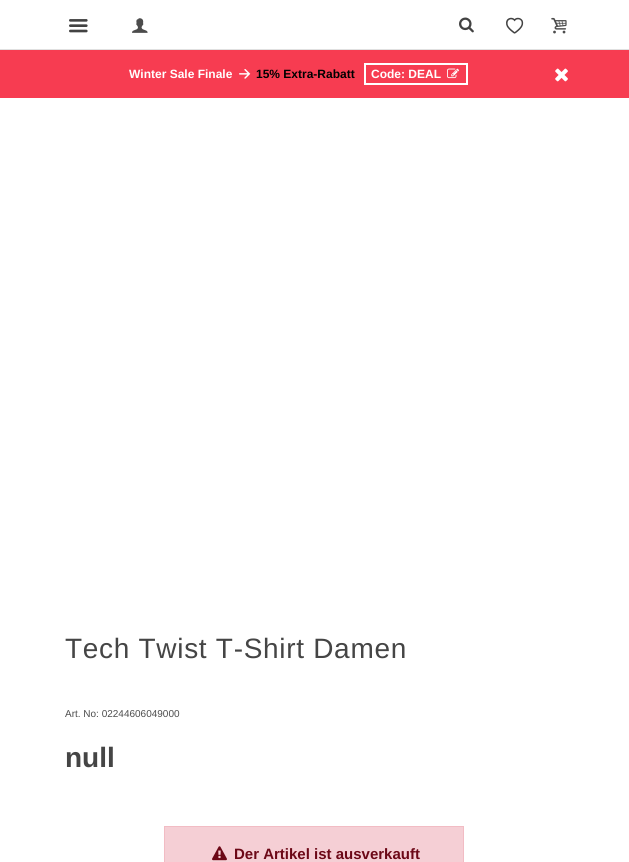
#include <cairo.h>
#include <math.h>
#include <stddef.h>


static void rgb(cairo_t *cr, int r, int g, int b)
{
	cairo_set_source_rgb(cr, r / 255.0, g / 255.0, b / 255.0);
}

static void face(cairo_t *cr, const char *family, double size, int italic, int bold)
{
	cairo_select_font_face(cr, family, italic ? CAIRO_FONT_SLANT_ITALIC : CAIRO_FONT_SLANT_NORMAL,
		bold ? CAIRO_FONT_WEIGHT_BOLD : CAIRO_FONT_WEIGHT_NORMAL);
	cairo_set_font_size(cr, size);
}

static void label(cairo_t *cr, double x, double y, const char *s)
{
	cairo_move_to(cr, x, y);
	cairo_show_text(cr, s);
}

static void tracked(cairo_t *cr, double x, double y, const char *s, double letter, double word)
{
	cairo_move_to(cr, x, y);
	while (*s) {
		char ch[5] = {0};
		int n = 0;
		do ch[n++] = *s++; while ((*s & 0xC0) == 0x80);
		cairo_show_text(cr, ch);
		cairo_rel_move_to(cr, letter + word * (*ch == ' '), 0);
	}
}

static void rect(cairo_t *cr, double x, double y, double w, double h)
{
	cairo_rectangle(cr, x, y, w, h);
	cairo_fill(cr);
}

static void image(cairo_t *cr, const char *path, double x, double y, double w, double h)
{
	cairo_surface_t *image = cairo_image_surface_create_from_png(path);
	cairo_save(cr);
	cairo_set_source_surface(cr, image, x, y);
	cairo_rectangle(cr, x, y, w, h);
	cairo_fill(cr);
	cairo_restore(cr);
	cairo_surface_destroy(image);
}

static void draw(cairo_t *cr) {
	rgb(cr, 255, 255, 255);
	cairo_paint(cr);
	rgb(cr, 224, 224, 224);
	rect(cr, 0, 49, 629, 1);
	image(cr, "image0.png", 69, 19, 19, 14);
	image(cr, "image1.png", 132, 18, 16, 15);
	image(cr, "image2.png", 459, 17, 15, 16);
	image(cr, "image3.png", 506, 17, 18, 17);
	image(cr, "image4.png", 551, 17, 16, 17);
	rgb(cr, 247, 60, 81);
	rect(cr, 0, 50, 629, 48);
	face(cr, "Liberation Sans", 12, 0, 1);
	rgb(cr, 255, 255, 255);
	label(cr, 129, 78, "Winter Sale Finale");
	image(cr, "image5.png", 239, 69, 12, 10);
	rgb(cr, 0, 0, 0);
	label(cr, 256, 78, "15% Extra-Rabatt");
	cairo_rectangle(cr, 365, 64, 102, 20);
	rgb(cr, 255, 255, 255);
	cairo_stroke(cr);
	label(cr, 371, 78, "Code: DEAL");
	image(cr, "image6.png", 447, 68, 12, 11);
	image(cr, "image7.png", 555, 68, 13, 14);
	face(cr, "Liberation Sans", 28, 0, 0);
	rgb(cr, 69, 69, 69);
	tracked(cr, 65, 658, "Tech Twist T-Shirt Damen", 0.7, 0);
	face(cr, "Liberation Sans", 10, 0, 0);
	rgb(cr, 76, 76, 76);
	label(cr, 65, 717, "Art. No: 02244606049000");
	face(cr, "Liberation Sans", 28, 0, 1);
	rgb(cr, 69, 69, 69);
	label(cr, 65, 767, "null");
	rgb(cr, 245, 207, 213);
	cairo_rectangle(cr, 164.5, 826.5, 299, 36);
	cairo_fill_preserve(cr);
	rgb(cr, 242, 188, 196);
	cairo_set_line_width(cr, 1);
	cairo_stroke(cr);
	image(cr, "image8.png", 212, 846, 15, 15);
	face(cr, "Liberation Sans", 15, 0, 1);
	rgb(cr, 108, 8, 23);
	label(cr, 234, 859, "Der Artikel ist ausverkauft");
}

int main(void) {
	cairo_surface_t *surface = cairo_image_surface_create(CAIRO_FORMAT_RGB24, 629, 862);
	cairo_t *cr = cairo_create(surface);
	cairo_font_options_t *options = cairo_font_options_create();
	cairo_font_options_set_hint_metrics(options, CAIRO_HINT_METRICS_OFF);
	cairo_font_options_set_hint_style(options, CAIRO_HINT_STYLE_NONE);
	cairo_set_font_options(cr, options);
	cairo_set_miter_limit(cr, 4);
	draw(cr);
	cairo_surface_write_to_png(surface, "render.png");
	cairo_font_options_destroy(options);
	cairo_destroy(cr);
	cairo_surface_destroy(surface);
	return 0;
}
